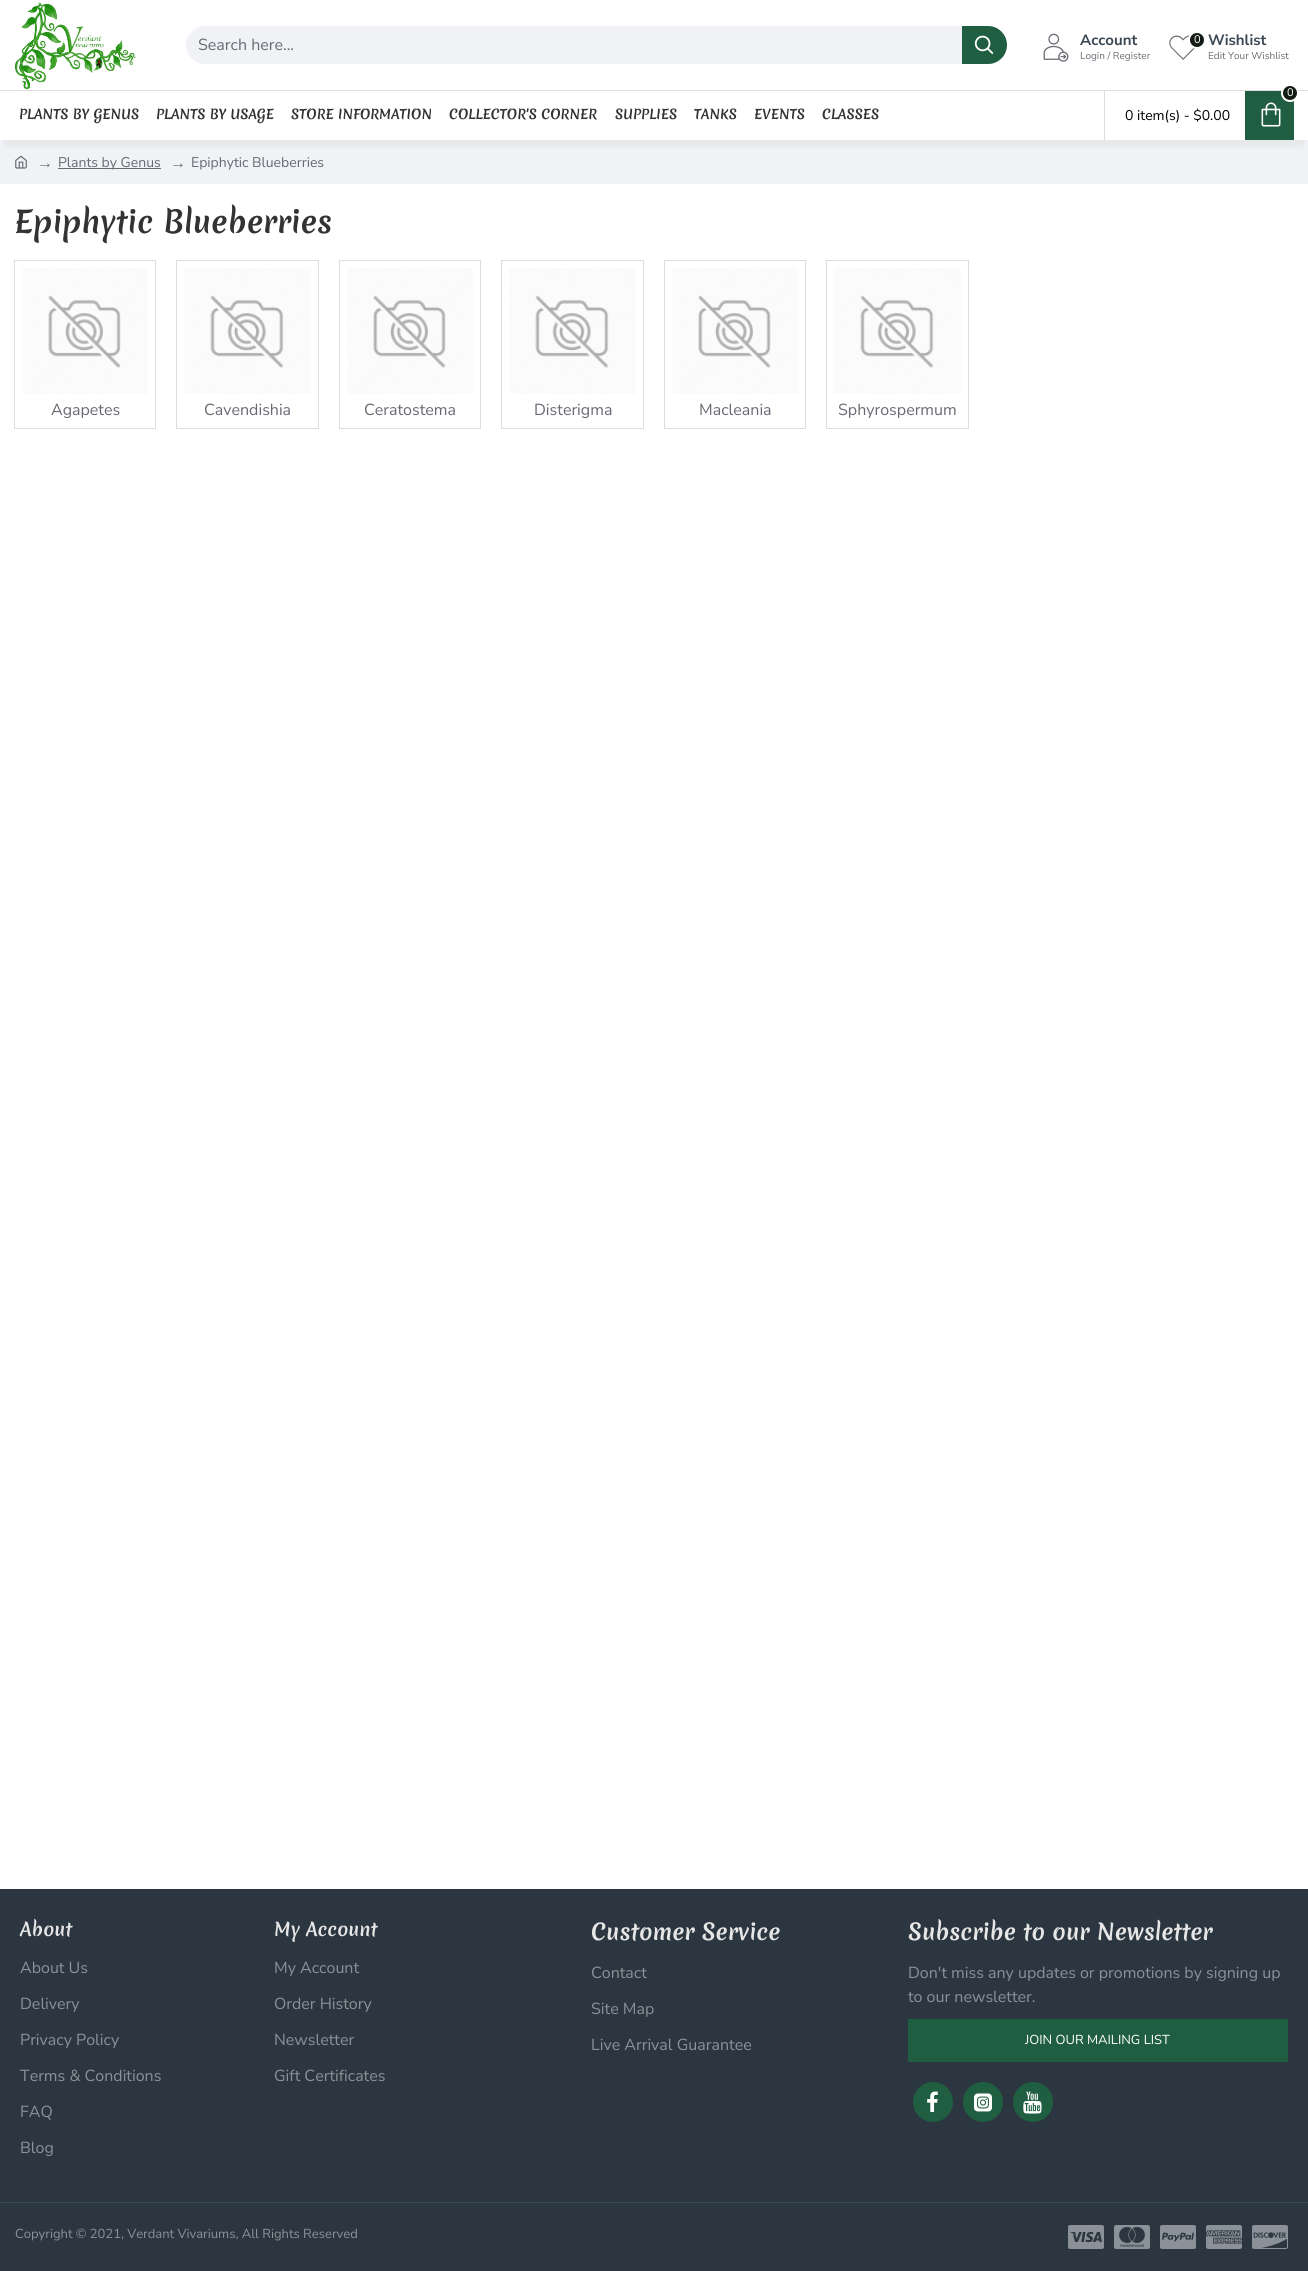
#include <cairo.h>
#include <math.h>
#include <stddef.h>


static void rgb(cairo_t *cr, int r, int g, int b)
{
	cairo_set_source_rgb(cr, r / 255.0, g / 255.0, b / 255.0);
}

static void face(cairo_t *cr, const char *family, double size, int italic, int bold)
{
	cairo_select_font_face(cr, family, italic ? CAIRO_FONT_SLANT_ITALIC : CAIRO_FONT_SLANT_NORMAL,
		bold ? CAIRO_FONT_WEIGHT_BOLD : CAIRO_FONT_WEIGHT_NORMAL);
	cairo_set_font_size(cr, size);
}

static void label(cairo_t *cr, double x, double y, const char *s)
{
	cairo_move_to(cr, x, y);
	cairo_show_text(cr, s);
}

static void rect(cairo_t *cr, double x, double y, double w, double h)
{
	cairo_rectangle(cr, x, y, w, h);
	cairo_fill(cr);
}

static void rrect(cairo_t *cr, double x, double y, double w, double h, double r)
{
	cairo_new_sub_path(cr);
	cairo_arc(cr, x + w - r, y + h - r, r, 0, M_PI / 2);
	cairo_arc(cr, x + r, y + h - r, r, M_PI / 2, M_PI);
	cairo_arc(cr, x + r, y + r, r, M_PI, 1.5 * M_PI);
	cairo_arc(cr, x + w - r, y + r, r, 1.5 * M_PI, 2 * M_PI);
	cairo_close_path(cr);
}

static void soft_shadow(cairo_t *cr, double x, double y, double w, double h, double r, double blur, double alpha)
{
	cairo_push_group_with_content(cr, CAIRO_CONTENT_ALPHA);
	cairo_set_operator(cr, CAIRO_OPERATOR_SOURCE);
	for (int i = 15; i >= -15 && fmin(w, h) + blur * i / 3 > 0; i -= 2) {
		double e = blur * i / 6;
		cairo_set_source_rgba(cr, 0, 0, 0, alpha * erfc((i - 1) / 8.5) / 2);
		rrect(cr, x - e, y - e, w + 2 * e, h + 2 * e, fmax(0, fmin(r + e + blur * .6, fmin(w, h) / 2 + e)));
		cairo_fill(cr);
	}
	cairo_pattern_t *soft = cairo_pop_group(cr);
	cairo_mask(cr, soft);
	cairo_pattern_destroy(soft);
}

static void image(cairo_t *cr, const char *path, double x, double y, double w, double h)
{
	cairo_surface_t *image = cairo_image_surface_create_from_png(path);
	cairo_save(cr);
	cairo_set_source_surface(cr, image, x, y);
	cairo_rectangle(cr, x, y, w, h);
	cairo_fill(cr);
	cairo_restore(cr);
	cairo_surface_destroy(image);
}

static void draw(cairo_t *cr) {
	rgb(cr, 255, 255, 255);
	cairo_paint(cr);
	rgb(cr, 240, 242, 245);
	rect(cr, 0, 140, 1308, 44);
	image(cr, "image5.png", 15, 155, 12, 14);
	rgb(cr, 105, 105, 115);
	rect(cr, 58, 168, 103, 1);
	cairo_save(cr);
	cairo_rectangle(cr, 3, 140, 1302, 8);
	cairo_clip(cr);
	rgb(cr, 0, 0, 0);
	soft_shadow(cr, 5, 10, 1298, 130, 0, 10, 0.1);
	cairo_restore(cr);
	image(cr, "image0.png", 14, 2, 122, 88);
	rgb(cr, 240, 242, 245);
	cairo_new_path(cr);
	cairo_move_to(cr, 205, 26);
	cairo_line_to(cr, 962, 26);
	cairo_line_to(cr, 962, 64);
	cairo_line_to(cr, 205, 64);
	cairo_curve_to(cr, 194.5, 64, 186, 55.5, 186, 45);
	cairo_curve_to(cr, 186, 34.5, 194.5, 26, 205, 26);
	cairo_close_path(cr);
	cairo_fill(cr);
	face(cr, "Nunito Sans", 16, 0, 0);
	rgb(cr, 105, 105, 115);
	label(cr, 198, 50, "Search here...");
	rgb(cr, 31, 94, 64);
	cairo_new_path(cr);
	cairo_move_to(cr, 962, 26);
	cairo_line_to(cr, 988, 26);
	cairo_curve_to(cr, 998.5, 26, 1007, 34.5, 1007, 45);
	cairo_curve_to(cr, 1007, 55.5, 998.5, 64, 988, 64);
	cairo_line_to(cr, 962, 64);
	cairo_close_path(cr);
	cairo_fill(cr);
	image(cr, "image1.png", 974, 35, 20, 19);
	image(cr, "image2.png", 1043, 33, 26, 29);
	face(cr, "Nunito Sans", 15, 0, 1);
	rgb(cr, 58, 71, 84);
	label(cr, 1080, 45, "Account");
	face(cr, "Nunito Sans", 10, 0, 0);
	rgb(cr, 105, 105, 115);
	label(cr, 1080, 59, "Login / Register");
	image(cr, "image3.png", 1169, 35, 26, 25);
	rgb(cr, 19, 28, 19);
	cairo_arc(cr, 1197, 40, 8, 0, 2 * M_PI);
	cairo_fill_preserve(cr);
	rgb(cr, 255, 255, 255);
	cairo_stroke(cr);
	face(cr, "Nunito Sans", 11, 0, 0);
	label(cr, 1194, 43, "0");
	face(cr, "Nunito Sans", 15, 0, 1);
	rgb(cr, 58, 71, 84);
	label(cr, 1208, 45, "Wishlist");
	face(cr, "Nunito Sans", 10, 0, 0);
	rgb(cr, 105, 105, 115);
	label(cr, 1208, 59, "Edit Your Wishlist");
	rgb(cr, 221, 221, 221);
	rect(cr, 0, 90, 1308, 1);
	rect(cr, 1104, 90, 1, 50);
	rgb(cr, 31, 94, 64);
	rect(cr, 1245, 91, 49, 49);
	rgb(cr, 19, 28, 19);
	cairo_new_path(cr);
	cairo_arc(cr, 1290, 93, 8, 0, 2 * M_PI);
	cairo_fill_preserve(cr);
	rgb(cr, 255, 255, 255);
	cairo_stroke(cr);
	face(cr, "Nunito Sans", 11, 0, 0);
	label(cr, 1287, 96, "0");
	face(cr, "Nunito Sans", 14, 0, 0);
	rgb(cr, 0, 0, 0);
	label(cr, 1125, 120, "0 item(s) - $0.00");
	image(cr, "image4.png", 1261, 102, 20, 25);
	face(cr, "Merienda", 13, 0, 1);
	rgb(cr, 51, 51, 51);
	label(cr, 19, 119, "PLANTS BY GENUS");
	label(cr, 156, 119, "PLANTS BY USAGE");
	label(cr, 291, 119, "STORE INFORMATION");
	label(cr, 449, 119, "COLLECTOR'S CORNER");
	label(cr, 615, 119, "SUPPLIES");
	label(cr, 694, 119, "TANKS");
	label(cr, 754, 119, "EVENTS");
	label(cr, 822, 119, "CLASSES");
	face(cr, "Liberation Serif", 16, 0, 0);
	rgb(cr, 105, 105, 115);
	label(cr, 37, 168, "→");
	face(cr, "Nunito Sans", 14, 0, 0);
	label(cr, 58, 167, "Plants by Genus");
	face(cr, "Liberation Serif", 16, 0, 0);
	label(cr, 170, 168, "→");
	face(cr, "Nunito Sans", 14, 0, 0);
	label(cr, 191, 167, "Epiphytic Blueberries");
	face(cr, "Merienda", 30, 0, 1);
	rgb(cr, 51, 51, 51);
	label(cr, 14, 233, "Epiphytic Blueberries");
	cairo_rectangle(cr, 14.5, 260.5, 141, 168);
	rgb(cr, 221, 221, 221);
	cairo_set_line_width(cr, 1);
	cairo_stroke(cr);
	image(cr, "image6.png", 22, 268, 126, 126);
	face(cr, "Nunito Sans", 16, 0, 0);
	rgb(cr, 105, 105, 115);
	label(cr, 51, 415, "Agapetes");
	cairo_rectangle(cr, 176.5, 260.5, 142, 168);
	rgb(cr, 221, 221, 221);
	cairo_stroke(cr);
	image(cr, "image7.png", 184, 268, 127, 126);
	rgb(cr, 105, 105, 115);
	label(cr, 204, 415, "Cavendishia");
	cairo_rectangle(cr, 339.5, 260.5, 141, 168);
	rgb(cr, 221, 221, 221);
	cairo_stroke(cr);
	image(cr, "image8.png", 347, 268, 126, 126);
	rgb(cr, 105, 105, 115);
	label(cr, 364, 415, "Ceratostema");
	cairo_rectangle(cr, 501.5, 260.5, 142, 168);
	rgb(cr, 221, 221, 221);
	cairo_stroke(cr);
	image(cr, "image7.png", 509, 268, 127, 126);
	rgb(cr, 105, 105, 115);
	label(cr, 534, 415, "Disterigma");
	cairo_rectangle(cr, 664.5, 260.5, 141, 168);
	rgb(cr, 221, 221, 221);
	cairo_stroke(cr);
	image(cr, "image9.png", 672, 268, 126, 126);
	rgb(cr, 105, 105, 115);
	label(cr, 699, 415, "Macleania");
	cairo_rectangle(cr, 826.5, 260.5, 142, 168);
	rgb(cr, 221, 221, 221);
	cairo_stroke(cr);
	image(cr, "image7.png", 834, 268, 127, 126);
	rgb(cr, 105, 105, 115);
	label(cr, 838, 415, "Sphyrospermum");
	rgb(cr, 44, 54, 64);
	rect(cr, 0, 1889, 1308, 382);
	face(cr, "Merienda", 18, 0, 1);
	rgb(cr, 230, 230, 230);
	label(cr, 20, 1936, "About");
	face(cr, "Nunito Sans", 16, 0, 0);
	rgb(cr, 139, 145, 152);
	label(cr, 20, 1973, "About Us");
	label(cr, 20, 2009, "Delivery");
	label(cr, 20, 2045, "Privacy Policy");
	label(cr, 20, 2081, "Terms & Conditions");
	label(cr, 20, 2117, "FAQ");
	label(cr, 20, 2153, "Blog");
	face(cr, "Merienda", 18, 0, 1);
	rgb(cr, 230, 230, 230);
	label(cr, 274, 1936, "My Account");
	face(cr, "Nunito Sans", 16, 0, 0);
	rgb(cr, 139, 145, 152);
	label(cr, 274, 1973, "My Account");
	label(cr, 274, 2009, "Order History");
	label(cr, 274, 2045, "Newsletter");
	label(cr, 274, 2081, "Gift Certificates");
	face(cr, "Merienda", 22, 0, 1);
	rgb(cr, 230, 230, 230);
	label(cr, 591, 1940, "Customer Service");
	face(cr, "Nunito Sans", 16, 0, 0);
	rgb(cr, 139, 145, 152);
	label(cr, 591, 1978, "Contact");
	label(cr, 591, 2014, "Site Map");
	label(cr, 591, 2050, "Live Arrival Guarantee");
	face(cr, "Merienda", 22, 0, 1);
	rgb(cr, 230, 230, 230);
	label(cr, 908, 1940, "Subscribe to our Newsletter");
	face(cr, "Nunito Sans", 16, 0, 0);
	rgb(cr, 139, 145, 152);
	label(cr, 908, 1978, "Don't miss any updates or promotions by signing up");
	label(cr, 908, 2002, "to our newsletter.");
	rgb(cr, 31, 94, 64);
	rect(cr, 908, 2019, 380, 43);
	face(cr, "Nunito Sans", 13, 0, 0);
	rgb(cr, 255, 255, 255);
	label(cr, 1025, 2044, "JOIN OUR MAILING LIST");
	rgb(cr, 31, 94, 64);
	cairo_new_path(cr);
	cairo_arc(cr, 933, 2102, 20, 0, 2 * M_PI);
	cairo_fill(cr);
	image(cr, "image10.png", 927, 2091, 11, 21);
	cairo_arc(cr, 983, 2102, 20, 0, 2 * M_PI);
	cairo_fill(cr);
	image(cr, "image11.png", 974, 2093, 18, 19);
	cairo_arc(cr, 1033, 2102, 20, 0, 2 * M_PI);
	cairo_fill(cr);
	image(cr, "image12.png", 1023, 2091, 19, 23);
	rgb(cr, 58, 71, 84);
	rect(cr, 0, 2202, 1308, 1);
	rgb(cr, 139, 145, 152);
	label(cr, 15, 2238, "Copyright © 2021, Verdant Vivariums, All Rights Reserved");
	image(cr, "image13.png", 1068, 2225, 36, 24);
	image(cr, "image14.png", 1114, 2225, 36, 24);
	image(cr, "image15.png", 1160, 2225, 36, 24);
	image(cr, "image16.png", 1206, 2225, 36, 24);
	image(cr, "image17.png", 1252, 2225, 36, 24);
}

int main(void) {
	cairo_surface_t *surface = cairo_image_surface_create(CAIRO_FORMAT_RGB24, 1308, 2271);
	cairo_t *cr = cairo_create(surface);
	cairo_font_options_t *options = cairo_font_options_create();
	cairo_font_options_set_hint_metrics(options, CAIRO_HINT_METRICS_OFF);
	cairo_font_options_set_hint_style(options, CAIRO_HINT_STYLE_NONE);
	cairo_set_font_options(cr, options);
	cairo_set_miter_limit(cr, 4);
	draw(cr);
	cairo_surface_write_to_png(surface, "render.png");
	cairo_font_options_destroy(options);
	cairo_destroy(cr);
	cairo_surface_destroy(surface);
	return 0;
}
